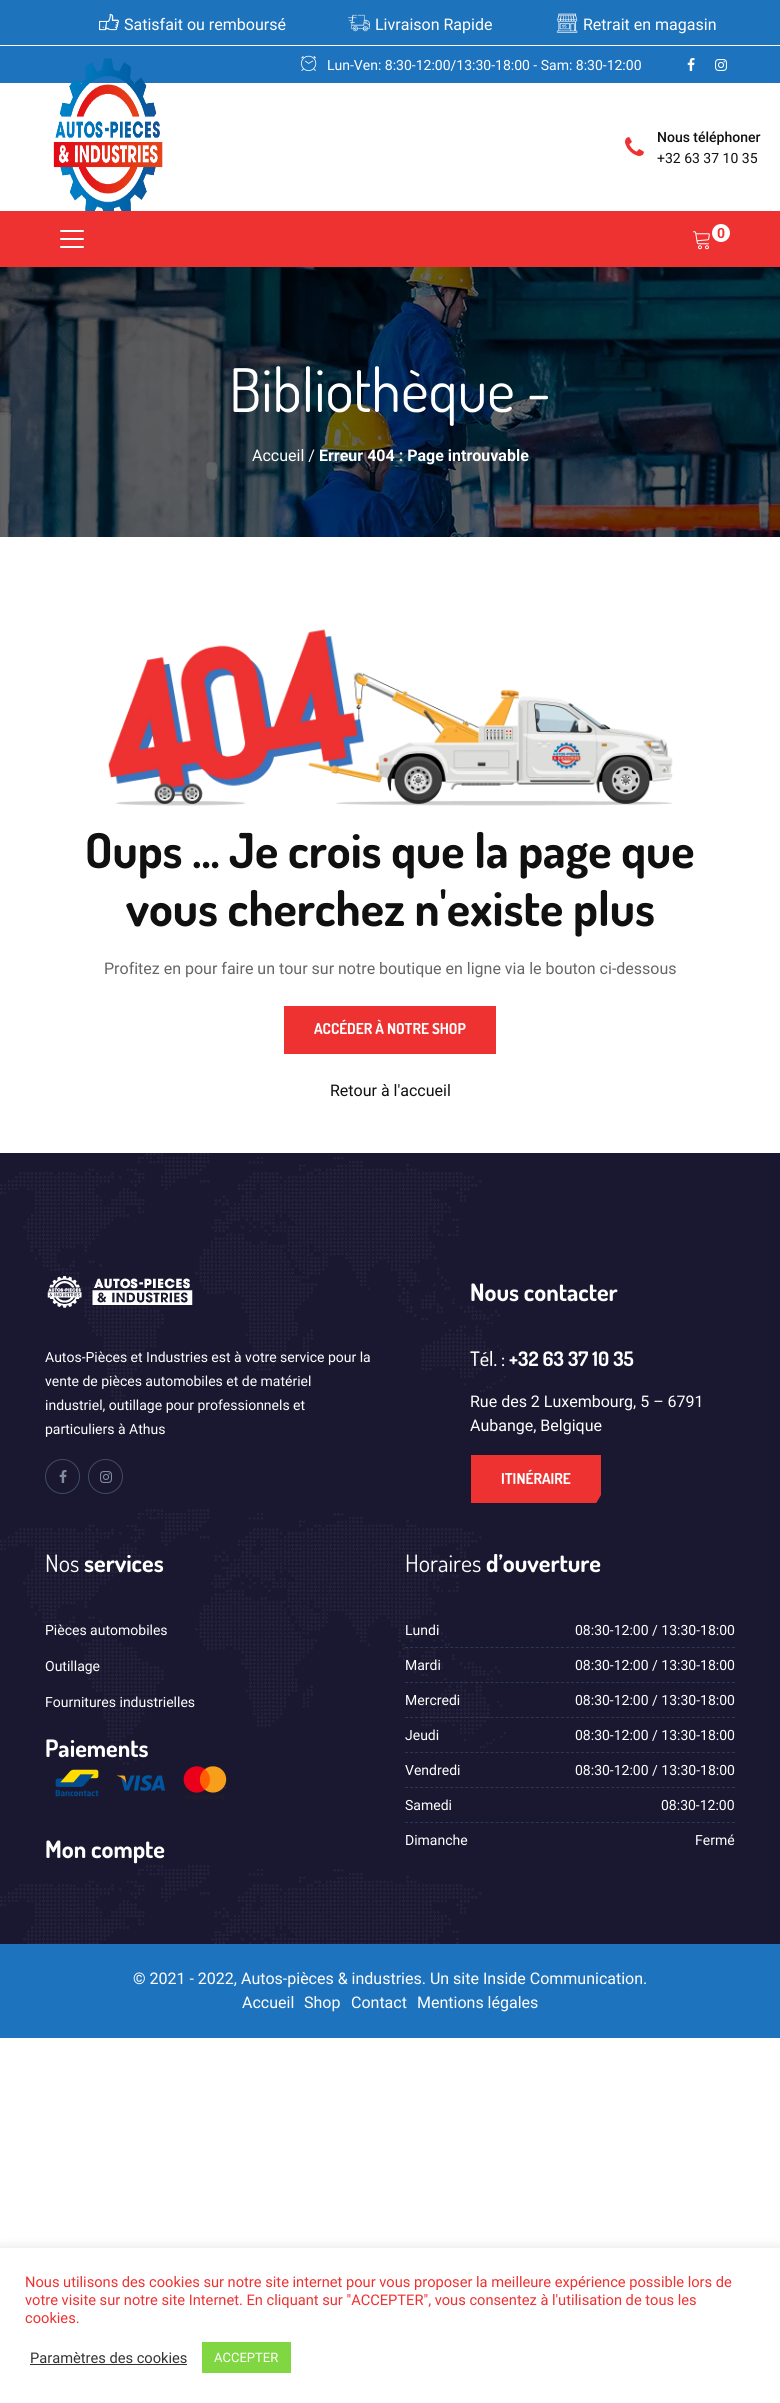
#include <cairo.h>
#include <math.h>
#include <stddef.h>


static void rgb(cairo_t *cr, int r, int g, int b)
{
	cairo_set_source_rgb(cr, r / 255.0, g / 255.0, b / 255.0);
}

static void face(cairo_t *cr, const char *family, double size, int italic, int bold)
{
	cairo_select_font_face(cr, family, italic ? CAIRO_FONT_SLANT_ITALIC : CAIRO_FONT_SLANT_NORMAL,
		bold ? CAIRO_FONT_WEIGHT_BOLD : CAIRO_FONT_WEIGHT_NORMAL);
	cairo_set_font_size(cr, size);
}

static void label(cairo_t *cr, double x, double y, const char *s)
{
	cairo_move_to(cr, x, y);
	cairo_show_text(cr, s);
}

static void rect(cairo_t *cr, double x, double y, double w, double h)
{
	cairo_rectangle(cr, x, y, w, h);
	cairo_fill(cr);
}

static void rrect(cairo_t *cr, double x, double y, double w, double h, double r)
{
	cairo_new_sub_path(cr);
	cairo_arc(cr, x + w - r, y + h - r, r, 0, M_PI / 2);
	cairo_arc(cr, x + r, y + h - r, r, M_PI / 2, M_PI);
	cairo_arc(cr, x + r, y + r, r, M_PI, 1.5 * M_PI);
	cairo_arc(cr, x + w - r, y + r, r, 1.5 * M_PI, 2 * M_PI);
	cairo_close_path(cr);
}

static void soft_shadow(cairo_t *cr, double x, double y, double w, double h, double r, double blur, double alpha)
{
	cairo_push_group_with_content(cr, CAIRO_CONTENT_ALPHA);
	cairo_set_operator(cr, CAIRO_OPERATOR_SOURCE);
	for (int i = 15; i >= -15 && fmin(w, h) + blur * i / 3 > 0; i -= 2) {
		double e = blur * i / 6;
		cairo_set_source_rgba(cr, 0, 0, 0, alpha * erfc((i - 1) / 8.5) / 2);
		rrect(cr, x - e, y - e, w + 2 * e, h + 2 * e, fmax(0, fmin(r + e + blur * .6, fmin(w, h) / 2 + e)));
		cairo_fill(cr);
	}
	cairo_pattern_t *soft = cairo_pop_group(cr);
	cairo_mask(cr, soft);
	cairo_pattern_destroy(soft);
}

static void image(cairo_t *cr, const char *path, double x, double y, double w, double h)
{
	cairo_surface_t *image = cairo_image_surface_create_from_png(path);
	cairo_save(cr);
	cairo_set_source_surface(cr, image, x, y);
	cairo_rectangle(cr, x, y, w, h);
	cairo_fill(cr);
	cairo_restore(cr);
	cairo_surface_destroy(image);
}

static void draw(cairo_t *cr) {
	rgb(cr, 255, 255, 255);
	cairo_paint(cr);
	rgb(cr, 30, 115, 189);
	rect(cr, 0, 0, 780, 45);
	image(cr, "image0.png", 99, 13, 20, 18);
	face(cr, "Roboto", 16, 0, 0);
	rgb(cr, 255, 255, 255);
	label(cr, 124, 30, "Satisfait ou remboursé");
	image(cr, "image1.png", 348, 14, 22, 18);
	label(cr, 375, 30, "Livraison Rapide");
	image(cr, "image2.png", 556, 13, 22, 20);
	label(cr, 583, 30, "Retrait en magasin");
	rgb(cr, 30, 115, 190);
	rect(cr, 0, 46, 780, 37);
	image(cr, "image3.png", 301, 55, 16, 16);
	face(cr, "Roboto", 14, 0, 0);
	rgb(cr, 255, 255, 255);
	label(cr, 327, 70, "Lun-Ven: 8:30-12:00/13:30-18:00 - Sam: 8:30-12:00");
	image(cr, "image4.png", 687, 58, 8, 13);
	image(cr, "image5.png", 715, 59, 12, 12);
	image(cr, "image6.png", 53, 58, 110, 153);
	image(cr, "image7.png", 625, 137, 19, 19);
	face(cr, "Roboto Medium", 14, 0, 0);
	rgb(cr, 16, 16, 16);
	label(cr, 657, 142, "Nous téléphoner");
	face(cr, "Roboto", 14, 0, 0);
	label(cr, 657, 163, "+32 63 37 10 35");
	rgb(cr, 238, 49, 49);
	rect(cr, 0, 211, 780, 56);
	image(cr, "image8.png", 60, 230, 24, 18);
	image(cr, "image9.png", 693, 231, 17, 19);
	rgb(cr, 255, 255, 255);
	cairo_arc(cr, 721, 233, 9, 0, 2 * M_PI);
	cairo_fill(cr);
	face(cr, "Roboto", 14, 0, 1);
	rgb(cr, 238, 49, 49);
	label(cr, 717, 238, "0");
	image(cr, "image10.png", 0, 267, 780, 270);
	face(cr, "Dosis", 60, 0, 0);
	rgb(cr, 255, 255, 255);
	label(cr, 229, 412, "Bibliothèque -");
	face(cr, "Roboto", 16, 0, 0);
	label(cr, 252, 461, "Accueil /");
	face(cr, "Roboto", 16, 0, 1);
	label(cr, 319, 461, "Erreur 404 : Page introuvable");
	image(cr, "image11.png", 108, 629, 565, 177);
	face(cr, "Dosis", 48, 0, 1);
	rgb(cr, 16, 16, 16);
	label(cr, 85, 868, "Oups ... Je crois que la page que");
	label(cr, 126, 926, "vous cherchez n'existe plus");
	face(cr, "Roboto", 16, 0, 0);
	rgb(cr, 102, 102, 102);
	label(cr, 104, 974, "Profitez en pour faire un tour sur notre boutique en ligne via le bouton ci-dessous");
	cairo_save(cr);
	cairo_rectangle(cr, 284, 1006, 212, 48);
	cairo_clip(cr);
	rgb(cr, 238, 49, 49);
	cairo_set_fill_rule(cr, CAIRO_FILL_RULE_EVEN_ODD);
	cairo_new_path(cr);
	cairo_move_to(cr, 284, 977);
	cairo_line_to(cr, 284, 1083);
	cairo_line_to(cr, 479, 1083);
	cairo_line_to(cr, 496, 1055);
	cairo_line_to(cr, 496, 977);
	cairo_close_path(cr);
	cairo_fill(cr);
	cairo_restore(cr);
	face(cr, "Dosis", 15, 0, 1);
	rgb(cr, 255, 255, 255);
	label(cr, 314, 1034, "ACCÉDER À NOTRE SHOP");
	face(cr, "Roboto", 16, 0, 0);
	rgb(cr, 16, 16, 16);
	label(cr, 330, 1096, "Retour à l'accueil");
	rgb(cr, 26, 24, 49);
	rect(cr, 0, 1153, 780, 791);
	image(cr, "image12.png", 0, 1153, 506, 791);
	image(cr, "image13.png", 47, 1276, 146, 32);
	face(cr, "Roboto", 14, 0, 0);
	rgb(cr, 255, 255, 255);
	label(cr, 45, 1362, "Autos-Pièces et Industries est à votre service pour la");
	label(cr, 45, 1386, "vente de pièces automobiles et de matériel");
	label(cr, 45, 1410, "industriel, outillage pour professionnels et");
	label(cr, 45, 1434, "particuliers à Athus");
	cairo_new_path(cr);
	cairo_arc(cr, 62.5, 1476.5, 17, 0, 2 * M_PI);
	rgb(cr, 62, 74, 101);
	cairo_set_line_width(cr, 1);
	cairo_stroke(cr);
	image(cr, "image14.png", 59, 1470, 8, 13);
	cairo_arc(cr, 105.5, 1476.5, 17, 0, 2 * M_PI);
	cairo_stroke(cr);
	image(cr, "image15.png", 100, 1471, 12, 12);
	face(cr, "Dosis", 24, 0, 1);
	rgb(cr, 255, 255, 255);
	label(cr, 470, 1301, "Nous contacter");
	face(cr, "Dosis Medium", 20, 0, 0);
	label(cr, 470, 1366, "Tél. :");
	face(cr, "Dosis", 20, 0, 1);
	label(cr, 509, 1366, "+32 63 37 10 35");
	face(cr, "Roboto", 16, 0, 0);
	label(cr, 470, 1407, "Rue des 2 Luxembourg, 5 – 6791");
	label(cr, 470, 1431, "Aubange, Belgique");
	cairo_save(cr);
	cairo_rectangle(cr, 471, 1455, 130, 48);
	cairo_clip(cr);
	rgb(cr, 238, 49, 49);
	cairo_set_fill_rule(cr, CAIRO_FILL_RULE_EVEN_ODD);
	cairo_new_path(cr);
	cairo_move_to(cr, 471, 1447);
	cairo_line_to(cr, 471, 1512);
	cairo_line_to(cr, 591, 1512);
	cairo_line_to(cr, 601, 1495);
	cairo_line_to(cr, 601, 1447);
	cairo_close_path(cr);
	cairo_fill(cr);
	cairo_restore(cr);
	face(cr, "Dosis", 15, 0, 1);
	label(cr, 501, 1484, "ITINÉRAIRE");
	face(cr, "Dosis", 24, 0, 0);
	label(cr, 45, 1572, "Nos");
	face(cr, "Dosis", 24, 0, 1);
	label(cr, 84, 1572, "services");
	face(cr, "Roboto", 14, 0, 0);
	label(cr, 45, 1635, "Pièces automobiles");
	label(cr, 45, 1671, "Outillage");
	label(cr, 45, 1707, "Fournitures industrielles");
	face(cr, "Dosis", 24, 0, 1);
	label(cr, 45, 1757, "Paiements");
	image(cr, "image16.png", 55, 1769, 44, 28);
	image(cr, "image17.png", 117, 1775, 48, 16);
	image(cr, "image18.png", 183, 1766, 44, 34);
	label(cr, 45, 1858, "Mon compte");
	face(cr, "Dosis", 24, 0, 0);
	label(cr, 405, 1572, "Horaires");
	face(cr, "Dosis", 24, 0, 1);
	label(cr, 486, 1572, "d’ouverture");
	cairo_new_path(cr);
	cairo_move_to(cr, 405, 1647.5);
	cairo_line_to(cr, 735, 1647.5);
	rgb(cr, 42, 56, 86);
	cairo_set_dash(cr, (double[]){3, 2.03}, 2, 0);
	cairo_stroke(cr);
	face(cr, "Roboto", 14, 0, 0);
	rgb(cr, 255, 255, 255);
	label(cr, 405, 1635, "Lundi");
	label(cr, 575, 1635, "08:30-12:00 / 13:30-18:00");
	cairo_new_path(cr);
	cairo_move_to(cr, 405, 1682.5);
	cairo_line_to(cr, 735, 1682.5);
	rgb(cr, 42, 56, 86);
	cairo_stroke(cr);
	rgb(cr, 255, 255, 255);
	label(cr, 405, 1670, "Mardi");
	label(cr, 575, 1670, "08:30-12:00 / 13:30-18:00");
	cairo_new_path(cr);
	cairo_move_to(cr, 405, 1717.5);
	cairo_line_to(cr, 735, 1717.5);
	rgb(cr, 42, 56, 86);
	cairo_stroke(cr);
	rgb(cr, 255, 255, 255);
	label(cr, 405, 1705, "Mercredi");
	label(cr, 575, 1705, "08:30-12:00 / 13:30-18:00");
	cairo_new_path(cr);
	cairo_move_to(cr, 405, 1752.5);
	cairo_line_to(cr, 735, 1752.5);
	rgb(cr, 42, 56, 86);
	cairo_stroke(cr);
	rgb(cr, 255, 255, 255);
	label(cr, 405, 1740, "Jeudi");
	label(cr, 575, 1740, "08:30-12:00 / 13:30-18:00");
	cairo_new_path(cr);
	cairo_move_to(cr, 405, 1787.5);
	cairo_line_to(cr, 735, 1787.5);
	rgb(cr, 42, 56, 86);
	cairo_stroke(cr);
	rgb(cr, 255, 255, 255);
	label(cr, 405, 1775, "Vendredi");
	label(cr, 575, 1775, "08:30-12:00 / 13:30-18:00");
	cairo_new_path(cr);
	cairo_move_to(cr, 405, 1822.5);
	cairo_line_to(cr, 735, 1822.5);
	rgb(cr, 42, 56, 86);
	cairo_stroke(cr);
	rgb(cr, 255, 255, 255);
	label(cr, 405, 1810, "Samedi");
	label(cr, 661, 1810, "08:30-12:00");
	label(cr, 405, 1845, "Dimanche");
	label(cr, 695, 1845, "Fermé");
	rgb(cr, 30, 115, 190);
	rect(cr, 0, 1944, 780, 94);
	face(cr, "Roboto", 16, 0, 0);
	rgb(cr, 255, 255, 255);
	label(cr, 133, 1984, "© 2021 - 2022, Autos-pièces & industries. Un site Inside Communication.");
	label(cr, 242, 2008, "Accueil");
	label(cr, 304, 2008, "Shop");
	label(cr, 351, 2008, "Contact");
	label(cr, 417, 2008, "Mentions légales");
	rgb(cr, 172, 171, 171);
	soft_shadow(cr, 0, 2247, 780, 155, 0, 5, 0.3);
	rgb(cr, 255, 255, 255);
	rect(cr, 0, 2248, 780, 155);
	face(cr, "Roboto", 14.65, 0, 0);
	rgb(cr, 238, 49, 49);
	label(cr, 25, 2287, "Nous utilisons des cookies sur notre site internet pour vous proposer la meilleure expérience possible lors de");
	label(cr, 25, 2305, "votre visite sur notre site Internet. En cliquant sur \"ACCEPTER\", vous consentez à l'utilisation de tous les");
	label(cr, 25, 2323, "cookies.");
	rgb(cr, 51, 51, 51);
	label(cr, 30, 2363, "Paramètres des cookies");
	rect(cr, 30, 2364, 157, 1);
	rgb(cr, 129, 215, 66);
	rect(cr, 202, 2342, 89, 31);
	face(cr, "Roboto", 13, 0, 0);
	rgb(cr, 255, 255, 255);
	label(cr, 214, 2362, "ACCEPTER");
}

int main(void) {
	cairo_surface_t *surface = cairo_image_surface_create(CAIRO_FORMAT_RGB24, 780, 2403);
	cairo_t *cr = cairo_create(surface);
	cairo_font_options_t *options = cairo_font_options_create();
	cairo_font_options_set_hint_metrics(options, CAIRO_HINT_METRICS_OFF);
	cairo_font_options_set_hint_style(options, CAIRO_HINT_STYLE_NONE);
	cairo_set_font_options(cr, options);
	cairo_set_miter_limit(cr, 4);
	draw(cr);
	cairo_surface_write_to_png(surface, "render.png");
	cairo_font_options_destroy(options);
	cairo_destroy(cr);
	cairo_surface_destroy(surface);
	return 0;
}
